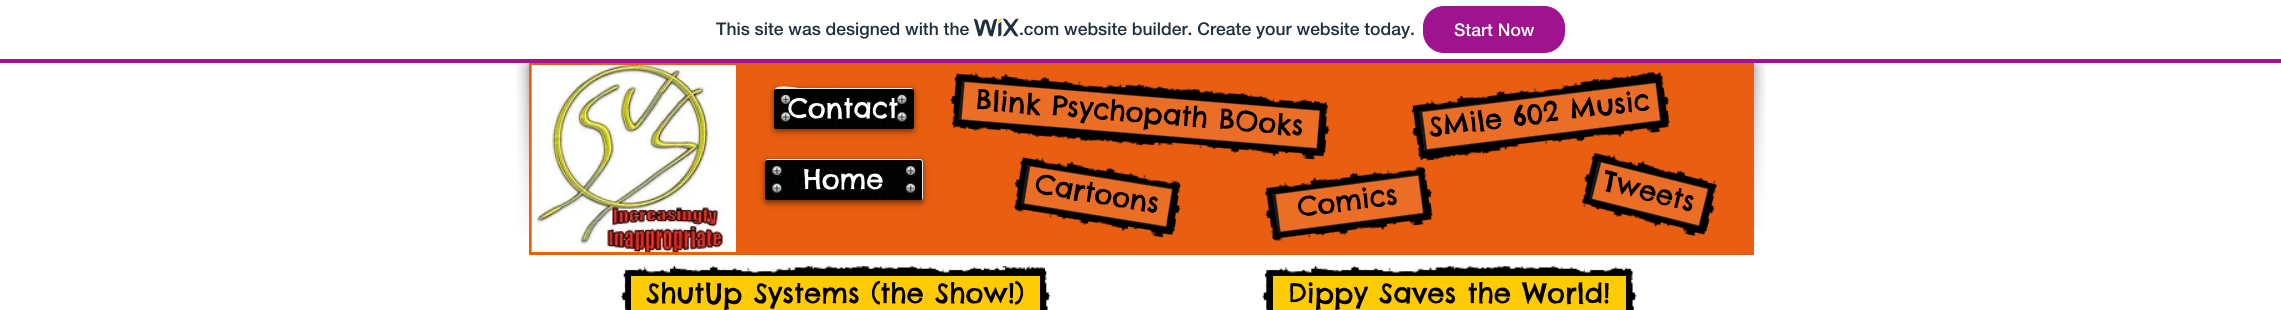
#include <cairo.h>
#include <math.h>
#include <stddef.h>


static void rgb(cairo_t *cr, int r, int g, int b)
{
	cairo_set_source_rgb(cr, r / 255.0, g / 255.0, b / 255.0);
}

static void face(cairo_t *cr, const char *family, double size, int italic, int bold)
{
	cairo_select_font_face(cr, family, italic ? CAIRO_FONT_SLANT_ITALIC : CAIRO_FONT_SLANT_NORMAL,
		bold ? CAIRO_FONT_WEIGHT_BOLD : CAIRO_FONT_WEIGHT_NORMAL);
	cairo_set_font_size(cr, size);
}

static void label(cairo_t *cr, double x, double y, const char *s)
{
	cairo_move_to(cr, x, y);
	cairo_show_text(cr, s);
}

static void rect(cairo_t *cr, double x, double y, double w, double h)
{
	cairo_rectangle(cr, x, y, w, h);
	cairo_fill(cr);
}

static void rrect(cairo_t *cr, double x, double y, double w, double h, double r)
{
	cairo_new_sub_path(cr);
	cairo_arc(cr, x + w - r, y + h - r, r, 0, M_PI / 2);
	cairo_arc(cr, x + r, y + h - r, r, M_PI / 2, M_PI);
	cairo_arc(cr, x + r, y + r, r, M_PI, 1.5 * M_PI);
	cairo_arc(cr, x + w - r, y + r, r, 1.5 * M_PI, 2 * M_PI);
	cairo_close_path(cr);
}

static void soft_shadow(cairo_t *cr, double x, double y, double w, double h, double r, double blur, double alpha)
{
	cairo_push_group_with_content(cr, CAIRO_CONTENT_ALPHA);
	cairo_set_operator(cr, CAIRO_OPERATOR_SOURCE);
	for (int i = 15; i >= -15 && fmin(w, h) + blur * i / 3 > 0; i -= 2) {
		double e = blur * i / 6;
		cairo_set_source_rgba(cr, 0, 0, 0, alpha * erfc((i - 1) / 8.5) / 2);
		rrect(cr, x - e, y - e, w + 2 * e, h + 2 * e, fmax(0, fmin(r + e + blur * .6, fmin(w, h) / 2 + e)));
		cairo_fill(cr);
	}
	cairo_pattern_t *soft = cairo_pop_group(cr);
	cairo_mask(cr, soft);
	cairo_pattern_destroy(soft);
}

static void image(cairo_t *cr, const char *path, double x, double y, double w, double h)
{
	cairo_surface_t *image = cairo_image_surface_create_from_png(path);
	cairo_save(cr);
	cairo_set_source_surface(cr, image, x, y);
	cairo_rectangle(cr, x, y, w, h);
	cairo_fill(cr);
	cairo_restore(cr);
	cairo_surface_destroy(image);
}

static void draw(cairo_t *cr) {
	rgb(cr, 255, 255, 255);
	cairo_paint(cr);
	rgb(cr, 160, 19, 142);
	rect(cr, 0, 59, 2281, 4);
	face(cr, "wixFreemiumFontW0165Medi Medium", 17.5, 0, 0);
	rgb(cr, 32, 48, 60);
	label(cr, 716, 35, "This site was designed with the");
	image(cr, "image0.png", 974, 18, 45, 19);
	label(cr, 1019, 35, ".com website builder. Create your website today.");
	rgb(cr, 160, 19, 142);
	rrect(cr, 1423.5, 6.5, 141, 46, 20.5);
	cairo_fill_preserve(cr);
	cairo_set_line_width(cr, 1);
	cairo_stroke(cr);
	rgb(cr, 255, 255, 255);
	label(cr, 1454, 36, "Start Now");
	image(cr, "image1.png", 516, 63, 13, 171);
	rgb(cr, 233, 94, 16);
	rect(cr, 529, 63, 1225, 192);
	image(cr, "image2.png", 1754, 63, 12, 168);
	image(cr, "image3.png", 531, 65, 205, 188);
	rgb(cr, 0, 0, 0);
	soft_shadow(cr, 774, 90, 140, 41, 2.5, 3, 0.53);
	rgb(cr, 0, 0, 0);
	rrect(cr, 774, 88, 140, 41, 2.5);
	cairo_fill(cr);
	image(cr, "image4.png", 774, 87, 139, 41);
	cairo_set_source_rgba(cr, 1, 1, 1, 0.92);
	cairo_new_path(cr);
	cairo_move_to(cr, 776, 89);
	cairo_line_to(cr, 911, 89);
	cairo_curve_to(cr, 913, 89, 914, 90, 914, 91);
	cairo_line_to(cr, 913, 89);
	cairo_line_to(cr, 912, 88);
	cairo_line_to(cr, 799, 88);
	cairo_curve_to(cr, 796, 88, 774, 83, 774, 91);
	cairo_curve_to(cr, 774, 90, 775, 89, 776, 89);
	cairo_close_path(cr);
	cairo_fill(cr);
	image(cr, "image5.png", 781, 94, 10, 10);
	image(cr, "image6.png", 897, 94, 10, 10);
	image(cr, "image7.png", 781, 112, 10, 10);
	image(cr, "image8.png", 897, 112, 10, 10);
	face(cr, "Chelsea Market", 27.5, 0, 0);
	rgb(cr, 255, 255, 255);
	label(cr, 788, 118, "Contact");
	image(cr, "image9.png", 950, 71, 377, 54);
	image(cr, "image10.png", 953, 105, 377, 55);
	cairo_set_source_rgba(cr, 1, 1, 1, 0.1);
	cairo_new_path(cr);
	cairo_move_to(cr, 962, 81);
	cairo_line_to(cr, 1320, 110);
	cairo_line_to(cr, 1317, 149);
	cairo_line_to(cr, 958, 120);
	cairo_close_path(cr);
	cairo_fill(cr);
	rgb(cr, 0, 0, 0);
	cairo_save(cr);
	cairo_translate(cr, 975, 109);
	cairo_rotate(cr, 4.6 * M_PI / 180);
	label(cr, 0, 0, "Blink Psychopath BOoks");
	cairo_restore(cr);
	image(cr, "image11.png", 1411, 72, 251, 85);
	image(cr, "image12.png", 1419, 76, 251, 85);
	cairo_set_source_rgba(cr, 1, 1, 1, 0.1);
	cairo_new_path(cr);
	cairo_move_to(cr, 1419, 111);
	cairo_line_to(cr, 1656, 82);
	cairo_line_to(cr, 1661, 121);
	cairo_line_to(cr, 1424, 151);
	cairo_close_path(cr);
	cairo_fill(cr);
	rgb(cr, 0, 0, 0);
	cairo_save(cr);
	cairo_translate(cr, 1430, 137);
	cairo_rotate(cr, -7.1 * M_PI / 180);
	label(cr, 0, 0, "SMile 602 Music");
	cairo_restore(cr);
	rgb(cr, 0, 0, 0);
	soft_shadow(cr, 765, 161, 158, 42, 2.5, 3, 0.53);
	rgb(cr, 0, 0, 0);
	rrect(cr, 765, 159, 158, 41, 2.5);
	cairo_fill(cr);
	image(cr, "image13.png", 765, 159, 157, 41);
	cairo_set_source_rgba(cr, 1, 1, 1, 0.92);
	cairo_new_path(cr);
	cairo_move_to(cr, 768, 160);
	cairo_line_to(cr, 920, 160);
	cairo_curve_to(cr, 921, 160, 922, 161, 922, 162);
	cairo_line_to(cr, 922, 200);
	cairo_curve_to(cr, 923, 199, 923, 198, 923, 198);
	cairo_line_to(cr, 923, 162);
	cairo_curve_to(cr, 923, 160, 922, 159, 920, 159);
	cairo_line_to(cr, 768, 159);
	cairo_curve_to(cr, 766, 159, 765, 160, 765, 162);
	cairo_curve_to(cr, 765, 161, 766, 160, 768, 160);
	cairo_close_path(cr);
	cairo_fill(cr);
	image(cr, "image14.png", 772, 166, 10, 10);
	rgb(cr, 255, 255, 255);
	label(cr, 803, 189, "Home");
	image(cr, "image15.png", 906, 166, 10, 10);
	image(cr, "image16.png", 772, 183, 10, 10);
	image(cr, "image17.png", 906, 183, 10, 10);
	image(cr, "image18.png", 1014, 157, 166, 53);
	image(cr, "image19.png", 1015, 184, 166, 54);
	cairo_set_source_rgba(cr, 1, 1, 1, 0.1);
	cairo_new_path(cr);
	cairo_move_to(cr, 1027, 165);
	cairo_line_to(cr, 1173, 188);
	cairo_line_to(cr, 1166, 228);
	cairo_line_to(cr, 1021, 204);
	cairo_close_path(cr);
	cairo_fill(cr);
	rgb(cr, 0, 0, 0);
	cairo_save(cr);
	cairo_translate(cr, 1034, 193);
	cairo_rotate(cr, 9.2 * M_PI / 180);
	label(cr, 0, 0, "Cartoons");
	cairo_restore(cr);
	image(cr, "image20.png", 1265, 166, 160, 73);
	image(cr, "image21.png", 1273, 168, 160, 74);
	cairo_set_source_rgba(cr, 1, 1, 1, 0.1);
	cairo_new_path(cr);
	cairo_move_to(cr, 1272, 194);
	cairo_line_to(cr, 1419, 174);
	cairo_line_to(cr, 1424, 214);
	cairo_line_to(cr, 1278, 233);
	cairo_close_path(cr);
	cairo_fill(cr);
	rgb(cr, 0, 0, 0);
	cairo_save(cr);
	cairo_translate(cr, 1299, 217);
	cairo_rotate(cr, -7.5 * M_PI / 180);
	label(cr, 0, 0, "Comics");
	cairo_restore(cr);
	image(cr, "image22.png", 1582, 152, 134, 53);
	image(cr, "image23.png", 1582, 183, 135, 53);
	cairo_set_source_rgba(cr, 1, 1, 1, 0.1);
	cairo_new_path(cr);
	cairo_move_to(cr, 1598, 161);
	cairo_line_to(cr, 1709, 188);
	cairo_line_to(cr, 1699, 227);
	cairo_line_to(cr, 1589, 199);
	cairo_close_path(cr);
	cairo_fill(cr);
	rgb(cr, 0, 0, 0);
	cairo_save(cr);
	cairo_translate(cr, 1601, 189);
	cairo_rotate(cr, 14.1 * M_PI / 180);
	label(cr, 0, 0, "Tweets");
	cairo_restore(cr);
	image(cr, "image24.png", 621, 266, 424, 44);
	image(cr, "image25.png", 1038, 271, 12, 39);
	rgb(cr, 255, 203, 5);
	rect(cr, 631, 276, 409, 34);
	rgb(cr, 0, 0, 0);
	label(cr, 646, 303, "ShutUp Systems (the Show!)");
	image(cr, "image26.png", 1262, 266, 370, 44);
	image(cr, "image27.png", 1624, 271, 13, 39);
	rgb(cr, 255, 203, 5);
	rect(cr, 1273, 276, 353, 34);
	rgb(cr, 0, 0, 0);
	label(cr, 1288, 303, "Dippy Saves the World!");
}

int main(void) {
	cairo_surface_t *surface = cairo_image_surface_create(CAIRO_FORMAT_RGB24, 2281, 310);
	cairo_t *cr = cairo_create(surface);
	cairo_font_options_t *options = cairo_font_options_create();
	cairo_font_options_set_hint_metrics(options, CAIRO_HINT_METRICS_OFF);
	cairo_font_options_set_hint_style(options, CAIRO_HINT_STYLE_NONE);
	cairo_set_font_options(cr, options);
	cairo_set_miter_limit(cr, 4);
	draw(cr);
	cairo_surface_write_to_png(surface, "render.png");
	cairo_font_options_destroy(options);
	cairo_destroy(cr);
	cairo_surface_destroy(surface);
	return 0;
}
